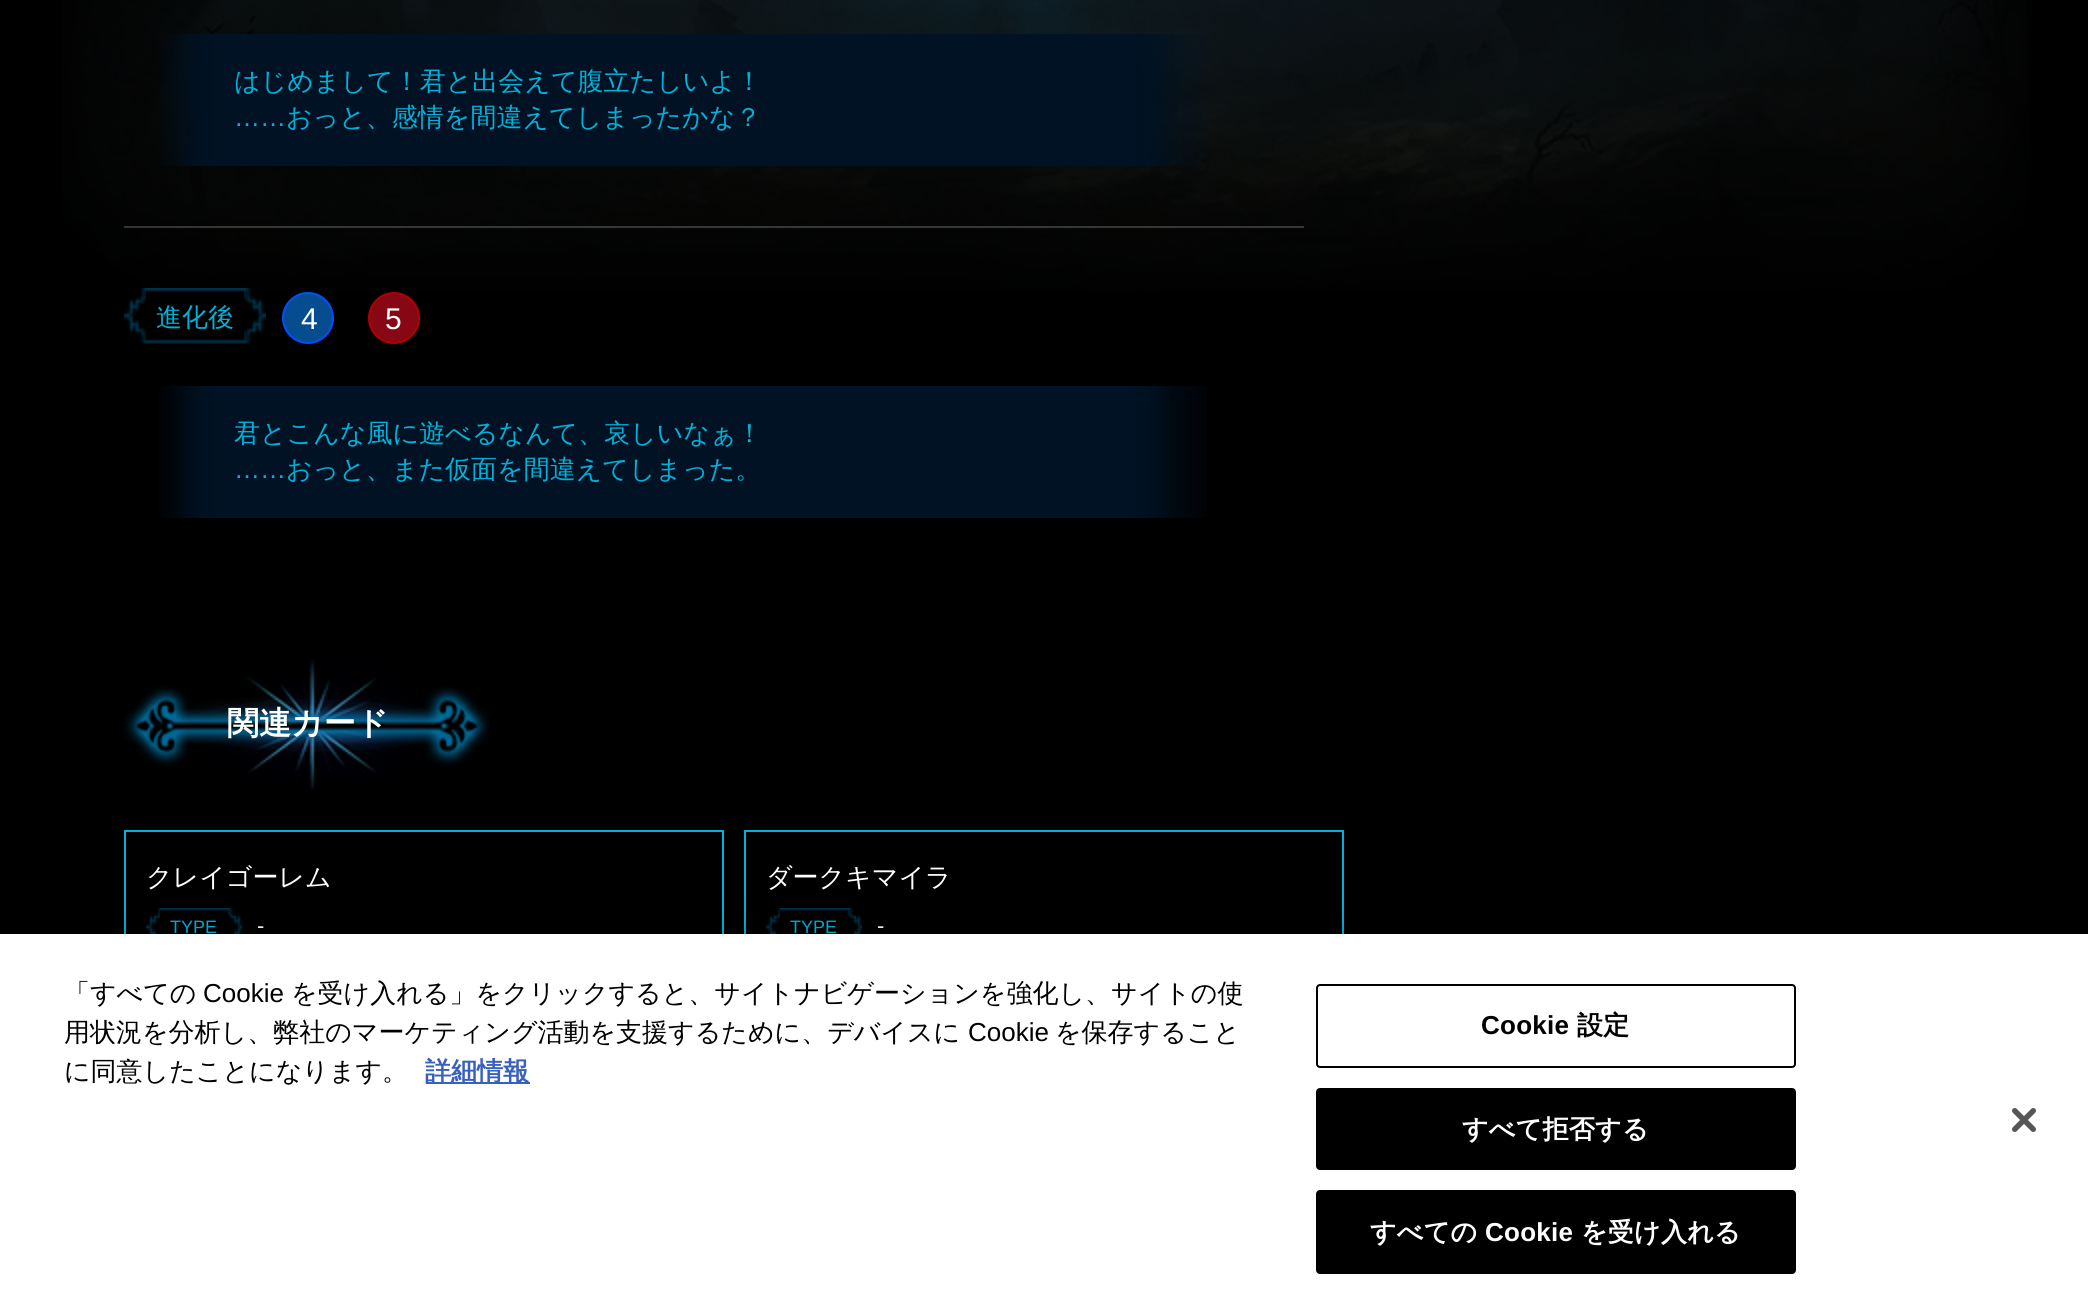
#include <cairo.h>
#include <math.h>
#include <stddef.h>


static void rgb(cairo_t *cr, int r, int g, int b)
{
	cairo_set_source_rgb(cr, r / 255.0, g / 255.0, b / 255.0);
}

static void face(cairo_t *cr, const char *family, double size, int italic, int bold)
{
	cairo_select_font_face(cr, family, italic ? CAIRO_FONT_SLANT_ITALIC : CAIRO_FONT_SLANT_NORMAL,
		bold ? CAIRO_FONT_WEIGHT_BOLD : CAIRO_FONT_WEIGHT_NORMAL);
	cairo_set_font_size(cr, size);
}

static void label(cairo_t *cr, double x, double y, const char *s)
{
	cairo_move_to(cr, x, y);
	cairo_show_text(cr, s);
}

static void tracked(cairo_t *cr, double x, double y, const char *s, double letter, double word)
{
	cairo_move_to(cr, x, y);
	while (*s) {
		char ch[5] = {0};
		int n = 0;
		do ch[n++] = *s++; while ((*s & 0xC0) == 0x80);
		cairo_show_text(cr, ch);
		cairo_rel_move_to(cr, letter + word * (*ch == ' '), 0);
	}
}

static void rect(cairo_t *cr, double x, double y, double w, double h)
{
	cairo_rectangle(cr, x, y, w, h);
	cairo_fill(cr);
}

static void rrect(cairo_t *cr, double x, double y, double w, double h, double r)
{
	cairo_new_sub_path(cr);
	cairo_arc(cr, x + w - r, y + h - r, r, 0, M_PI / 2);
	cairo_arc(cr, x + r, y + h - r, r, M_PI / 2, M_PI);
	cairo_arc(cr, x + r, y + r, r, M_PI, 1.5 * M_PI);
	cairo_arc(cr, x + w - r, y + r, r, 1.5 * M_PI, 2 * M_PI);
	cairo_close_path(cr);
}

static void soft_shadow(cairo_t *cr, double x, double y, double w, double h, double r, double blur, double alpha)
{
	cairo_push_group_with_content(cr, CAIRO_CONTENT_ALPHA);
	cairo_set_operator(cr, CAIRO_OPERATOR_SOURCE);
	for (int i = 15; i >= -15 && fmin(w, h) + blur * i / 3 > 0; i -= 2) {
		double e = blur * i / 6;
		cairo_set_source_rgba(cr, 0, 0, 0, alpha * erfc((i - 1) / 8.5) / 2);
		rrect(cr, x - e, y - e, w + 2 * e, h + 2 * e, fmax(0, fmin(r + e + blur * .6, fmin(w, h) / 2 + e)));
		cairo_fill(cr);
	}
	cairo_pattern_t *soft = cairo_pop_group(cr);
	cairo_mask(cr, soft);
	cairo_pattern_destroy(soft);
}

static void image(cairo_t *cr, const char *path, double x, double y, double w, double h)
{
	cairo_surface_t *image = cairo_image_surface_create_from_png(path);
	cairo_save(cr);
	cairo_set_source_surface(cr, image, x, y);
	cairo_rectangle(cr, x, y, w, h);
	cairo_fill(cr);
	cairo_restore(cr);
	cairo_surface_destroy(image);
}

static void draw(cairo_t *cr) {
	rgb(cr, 0, 0, 0);
	cairo_paint(cr);
	image(cr, "image0.png", 61, 0, 1968, 291);
	image(cr, "image1.png", 161, 34, 1042, 132);
	face(cr, "WenQuanYi Zen Hei Medium", 26, 0, 0);
	rgb(cr, 1, 177, 218);
	label(cr, 234, 90, "はじめまして！君と出会えて腹立たしいよ！");
	face(cr, "Liberation Sans", 26, 0, 0);
	label(cr, 234, 126, "……");
	face(cr, "WenQuanYi Zen Hei Medium", 26, 0, 0);
	label(cr, 286, 126, "おっと、感情を間違えてしまったかな？");
	cairo_set_source_rgba(cr, 1, 1, 1, 0.2);
	rect(cr, 124, 226, 1180, 2);
	image(cr, "image2.png", 146, 288, 98, 56);
	image(cr, "image3.png", 124, 288, 22, 57);
	rgb(cr, 1, 177, 218);
	label(cr, 156, 326, "進化後");
	image(cr, "image4.png", 244, 288, 22, 56);
	rgb(cr, 6, 77, 143);
	cairo_arc(cr, 308, 318, 25, 0, 2 * M_PI);
	cairo_fill_preserve(cr);
	rgb(cr, 0, 78, 255);
	cairo_stroke(cr);
	face(cr, "Liberation Sans", 30, 0, 0);
	rgb(cr, 255, 255, 255);
	label(cr, 301, 329, "4");
	rgb(cr, 135, 7, 20);
	cairo_new_path(cr);
	cairo_arc(cr, 394, 318, 25, 0, 2 * M_PI);
	cairo_fill_preserve(cr);
	rgb(cr, 178, 0, 0);
	cairo_stroke(cr);
	rgb(cr, 255, 255, 255);
	label(cr, 385, 329, "5");
	image(cr, "image5.png", 159, 386, 1048, 132);
	face(cr, "WenQuanYi Zen Hei Medium", 26, 0, 0);
	rgb(cr, 1, 177, 218);
	label(cr, 234, 442, "君とこんな風に遊べるなんて、哀しいなぁ！");
	face(cr, "Liberation Sans", 26, 0, 0);
	label(cr, 234, 478, "……");
	face(cr, "WenQuanYi Zen Hei Medium", 26, 0, 0);
	label(cr, 286, 478, "おっと、また仮面を間違えてしまった。");
	image(cr, "image6.png", 124, 658, 366, 132);
	face(cr, "WenQuanYi Zen Hei", 32, 0, 1);
	rgb(cr, 255, 255, 255);
	label(cr, 227, 734, "関連カード");
	cairo_rectangle(cr, 125, 831, 598, 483);
	rgb(cr, 1, 177, 218);
	cairo_stroke(cr);
	face(cr, "WenQuanYi Zen Hei Medium", 26, 0, 0);
	rgb(cr, 255, 255, 255);
	label(cr, 146, 886, "クレイゴーレム");
	image(cr, "image7.png", 160, 908, 68, 3);
	image(cr, "image8.png", 146, 908, 14, 26);
	face(cr, "Liberation Sans", 18, 0, 0);
	rgb(cr, 1, 177, 218);
	label(cr, 170, 933, "TYPE");
	image(cr, "image9.png", 228, 908, 14, 26);
	face(cr, "Liberation Sans", 22, 0, 0);
	rgb(cr, 255, 255, 255);
	label(cr, 257, 933, "-");
	cairo_rectangle(cr, 745, 831, 598, 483);
	rgb(cr, 1, 177, 218);
	cairo_stroke(cr);
	face(cr, "WenQuanYi Zen Hei Medium", 26, 0, 0);
	rgb(cr, 255, 255, 255);
	label(cr, 766, 886, "ダークキマイラ");
	image(cr, "image7.png", 780, 908, 68, 3);
	image(cr, "image8.png", 766, 908, 14, 26);
	face(cr, "Liberation Sans", 18, 0, 0);
	rgb(cr, 1, 177, 218);
	label(cr, 790, 933, "TYPE");
	image(cr, "image9.png", 848, 908, 14, 26);
	face(cr, "Liberation Sans", 22, 0, 0);
	rgb(cr, 255, 255, 255);
	label(cr, 877, 933, "-");
	rgb(cr, 0, 0, 0);
	soft_shadow(cr, 0, 934, 2088, 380, 0, 18, 0.2);
	rgb(cr, 255, 255, 255);
	rect(cr, 0, 934, 2088, 379);
	face(cr, "WenQuanYi Zen Hei Medium", 26, 0, 0);
	rgb(cr, 0, 0, 0);
	label(cr, 64, 1002, "「すべての");
	face(cr, "Liberation Sans", 26, 0, 0);
	label(cr, 203, 1002, "Cookie");
	face(cr, "WenQuanYi Zen Hei Medium", 26, 0, 0);
	label(cr, 291, 1002, "を受け入れる」をクリックすると、サイトナビゲーションを強化し、サイトの使");
	label(cr, 64, 1041, "用状況を分析し、弊社のマーケティング活動を支援するために、デバイスに");
	face(cr, "Liberation Sans", 26, 0, 0);
	label(cr, 968, 1041, "Cookie");
	face(cr, "WenQuanYi Zen Hei Medium", 26, 0, 0);
	label(cr, 1055, 1041, "を保存すること");
	label(cr, 64, 1080, "に同意したことになります。");
	rgb(cr, 56, 96, 190);
	rect(cr, 426, 1082, 104, 2);
	face(cr, "WenQuanYi Zen Hei", 26, 0, 1);
	label(cr, 425, 1080, "詳細情報");
	rrect(cr, 1317, 985, 478, 82, 3);
	rgb(cr, 0, 0, 0);
	cairo_stroke(cr);
	face(cr, "Liberation Sans", 26, 0, 1);
	tracked(cr, 1481, 1034, "Cookie", 0.25, 0);
	face(cr, "WenQuanYi Zen Hei", 26, 0, 1);
	tracked(cr, 1577, 1034, "設定", 0.25, 0);
	rrect(cr, 1317, 1089, 478, 80, 3);
	cairo_fill_preserve(cr);
	cairo_stroke(cr);
	rgb(cr, 255, 255, 255);
	tracked(cr, 1462, 1138, "すべて拒否する", 0.25, 0);
	rgb(cr, 0, 0, 0);
	rrect(cr, 1317, 1191, 478, 82, 3);
	cairo_fill_preserve(cr);
	cairo_stroke(cr);
	rgb(cr, 255, 255, 255);
	tracked(cr, 1370, 1241, "すべての", 0.25, 0);
	face(cr, "Liberation Sans", 26, 0, 1);
	tracked(cr, 1485, 1241, "Cookie", 0.25, 0);
	face(cr, "WenQuanYi Zen Hei", 26, 0, 1);
	tracked(cr, 1581, 1241, "を受け入れる", 0.25, 0);
	image(cr, "image10.png", 2012, 1108, 24, 24);
}

int main(void) {
	cairo_surface_t *surface = cairo_image_surface_create(CAIRO_FORMAT_RGB24, 2088, 1313);
	cairo_t *cr = cairo_create(surface);
	cairo_font_options_t *options = cairo_font_options_create();
	cairo_font_options_set_hint_metrics(options, CAIRO_HINT_METRICS_OFF);
	cairo_font_options_set_hint_style(options, CAIRO_HINT_STYLE_NONE);
	cairo_set_font_options(cr, options);
	cairo_set_miter_limit(cr, 4);
	draw(cr);
	cairo_surface_write_to_png(surface, "render.png");
	cairo_font_options_destroy(options);
	cairo_destroy(cr);
	cairo_surface_destroy(surface);
	return 0;
}
